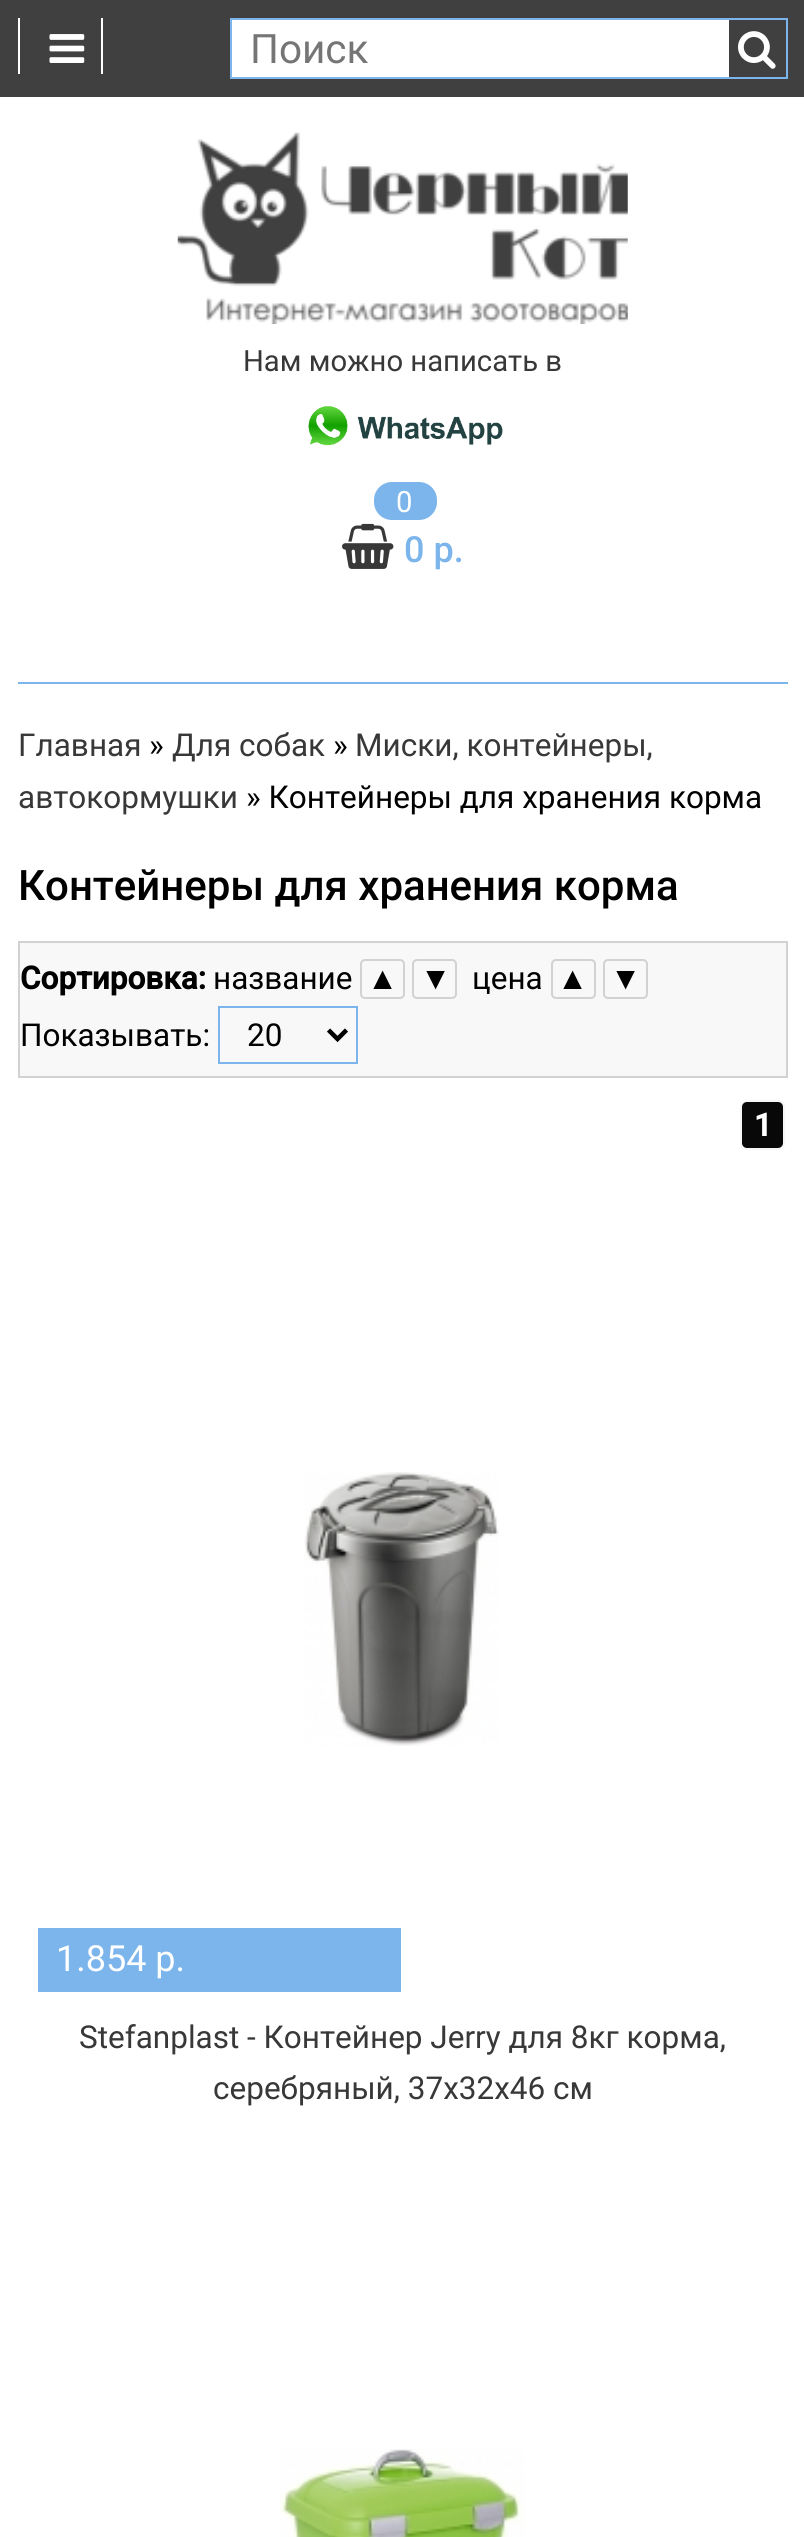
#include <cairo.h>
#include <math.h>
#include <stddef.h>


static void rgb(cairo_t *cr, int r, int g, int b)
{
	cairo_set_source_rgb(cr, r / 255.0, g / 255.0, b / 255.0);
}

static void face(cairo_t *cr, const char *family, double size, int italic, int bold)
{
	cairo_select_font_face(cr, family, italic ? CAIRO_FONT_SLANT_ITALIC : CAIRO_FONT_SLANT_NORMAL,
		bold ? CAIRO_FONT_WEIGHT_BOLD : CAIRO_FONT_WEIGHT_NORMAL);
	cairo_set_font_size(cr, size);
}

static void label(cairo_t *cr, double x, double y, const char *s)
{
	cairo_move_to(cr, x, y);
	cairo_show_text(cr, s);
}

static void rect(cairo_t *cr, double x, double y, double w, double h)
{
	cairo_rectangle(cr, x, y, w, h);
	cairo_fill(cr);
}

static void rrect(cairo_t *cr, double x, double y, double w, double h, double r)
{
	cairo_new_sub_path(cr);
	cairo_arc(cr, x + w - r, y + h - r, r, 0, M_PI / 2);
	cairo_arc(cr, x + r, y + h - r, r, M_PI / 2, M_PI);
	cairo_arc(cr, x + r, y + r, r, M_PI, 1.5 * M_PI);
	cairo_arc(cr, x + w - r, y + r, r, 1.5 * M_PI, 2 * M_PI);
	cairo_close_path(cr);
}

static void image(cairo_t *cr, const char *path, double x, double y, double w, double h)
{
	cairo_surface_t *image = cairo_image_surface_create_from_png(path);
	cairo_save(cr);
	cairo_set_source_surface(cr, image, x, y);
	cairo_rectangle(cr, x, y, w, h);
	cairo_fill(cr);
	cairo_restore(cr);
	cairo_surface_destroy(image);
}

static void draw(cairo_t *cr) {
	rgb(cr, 255, 255, 255);
	cairo_paint(cr);
	rgb(cr, 65, 64, 64);
	rect(cr, 0, 0, 804, 97);
	rgb(cr, 255, 255, 255);
	rect(cr, 101, 18, 2, 56);
	rect(cr, 18, 18, 2, 56);
	image(cr, "image0.png", 49, 34, 36, 29);
	cairo_rectangle(cr, 231, 19, 556, 59);
	rgb(cr, 124, 181, 236);
	cairo_stroke(cr);
	rgb(cr, 255, 255, 255);
	rect(cr, 232, 20, 497, 57);
	face(cr, "Roboto", 40.5, 0, 0);
	rgb(cr, 117, 117, 117);
	label(cr, 250, 63, "Поиск");
	image(cr, "image1.png", 738, 31, 38, 38);
	image(cr, "image2.png", 177, 132, 451, 192);
	face(cr, "Roboto", 29.25, 0, 0);
	rgb(cr, 56, 56, 56);
	label(cr, 243, 371, "Нам можно написать в");
	image(cr, "image3.png", 308, 406, 195, 40);
	rgb(cr, 124, 181, 236);
	rrect(cr, 374, 482, 63, 38, 18);
	cairo_fill(cr);
	rgb(cr, 255, 255, 255);
	label(cr, 396, 512, "0");
	image(cr, "image4.png", 342, 523, 52, 46);
	face(cr, "Roboto Medium", 36, 0, 0);
	rgb(cr, 124, 181, 236);
	label(cr, 404, 562, "0 р.");
	rect(cr, 18, 682, 770, 2);
	face(cr, "Roboto", 31.5, 0, 0);
	rgb(cr, 56, 56, 56);
	label(cr, 18, 756, "Главная");
	rgb(cr, 0, 0, 0);
	label(cr, 149, 756, "»");
	rgb(cr, 56, 56, 56);
	label(cr, 172, 756, "Для собак");
	rgb(cr, 0, 0, 0);
	label(cr, 333, 756, "»");
	rgb(cr, 56, 56, 56);
	label(cr, 355, 756, "Миски, контейнеры,");
	label(cr, 18, 808, "автокормушки");
	rgb(cr, 0, 0, 0);
	label(cr, 246, 808, "» Контейнеры для хранения корма");
	face(cr, "Roboto Medium", 42, 0, 0);
	label(cr, 18, 900, "Контейнеры для хранения корма");
	rgb(cr, 249, 248, 248);
	cairo_rectangle(cr, 19, 942, 768, 135);
	cairo_fill_preserve(cr);
	rgb(cr, 210, 210, 210);
	cairo_stroke(cr);
	face(cr, "Roboto", 31.5, 0, 1);
	rgb(cr, 0, 0, 0);
	label(cr, 20, 989, "Сортировка:");
	face(cr, "Roboto", 31.5, 0, 0);
	label(cr, 213, 989, "название");
	rrect(cr, 361, 960, 43, 38, 4);
	rgb(cr, 210, 210, 210);
	cairo_stroke(cr);
	face(cr, "Liberation Sans", 31.5, 0, 0);
	rgb(cr, 0, 0, 0);
	label(cr, 367, 989, "▲");
	rrect(cr, 413, 960, 43, 38, 4);
	rgb(cr, 210, 210, 210);
	cairo_stroke(cr);
	rgb(cr, 0, 0, 0);
	label(cr, 420, 989, "▼");
	face(cr, "Roboto", 31.5, 0, 0);
	label(cr, 472, 989, "цена");
	rrect(cr, 552, 960, 43, 38, 4);
	rgb(cr, 210, 210, 210);
	cairo_stroke(cr);
	face(cr, "Liberation Sans", 31.5, 0, 0);
	rgb(cr, 0, 0, 0);
	label(cr, 557, 989, "▲");
	rrect(cr, 604, 960, 43, 38, 4);
	rgb(cr, 210, 210, 210);
	cairo_stroke(cr);
	rgb(cr, 0, 0, 0);
	label(cr, 610, 989, "▼");
	face(cr, "Roboto", 31.5, 0, 0);
	label(cr, 20, 1046, "Показывать:");
	cairo_rectangle(cr, 219, 1007, 138, 56);
	rgb(cr, 124, 181, 236);
	cairo_stroke(cr);
	cairo_new_path(cr);
	cairo_move_to(cr, 328.5, 1030);
	cairo_line_to(cr, 337.5, 1039);
	cairo_line_to(cr, 346.5, 1030);
	rgb(cr, 0, 0, 0);
	cairo_set_line_width(cr, 4.5);
	cairo_stroke(cr);
	label(cr, 247, 1046, "20");
	rgb(cr, 8, 8, 8);
	rrect(cr, 741, 1101, 43, 48, 6);
	cairo_fill_preserve(cr);
	rgb(cr, 246, 246, 246);
	cairo_set_line_width(cr, 2);
	cairo_stroke(cr);
	face(cr, "Roboto", 31.5, 0, 1);
	rgb(cr, 255, 255, 255);
	label(cr, 754, 1136, "1");
	image(cr, "image5.png", 304, 1472, 195, 274);
	rgb(cr, 124, 181, 236);
	rect(cr, 38, 1928, 363, 64);
	face(cr, "Roboto", 36, 0, 0);
	rgb(cr, 255, 255, 255);
	label(cr, 56, 1971, "1.854 р.");
	face(cr, "Roboto", 31.5, 0, 0);
	rgb(cr, 56, 56, 56);
	label(cr, 79, 2048, "Stefanplast - Контейнер Jerry для 8кг корма,");
	label(cr, 213, 2099, "серебряный, 37x32x46 см");
	image(cr, "image6.png", 280, 2449, 245, 88);
}

int main(void) {
	cairo_surface_t *surface = cairo_image_surface_create(CAIRO_FORMAT_RGB24, 804, 2537);
	cairo_t *cr = cairo_create(surface);
	cairo_font_options_t *options = cairo_font_options_create();
	cairo_font_options_set_hint_metrics(options, CAIRO_HINT_METRICS_OFF);
	cairo_font_options_set_hint_style(options, CAIRO_HINT_STYLE_NONE);
	cairo_set_font_options(cr, options);
	cairo_set_miter_limit(cr, 4);
	draw(cr);
	cairo_surface_write_to_png(surface, "render.png");
	cairo_font_options_destroy(options);
	cairo_destroy(cr);
	cairo_surface_destroy(surface);
	return 0;
}
